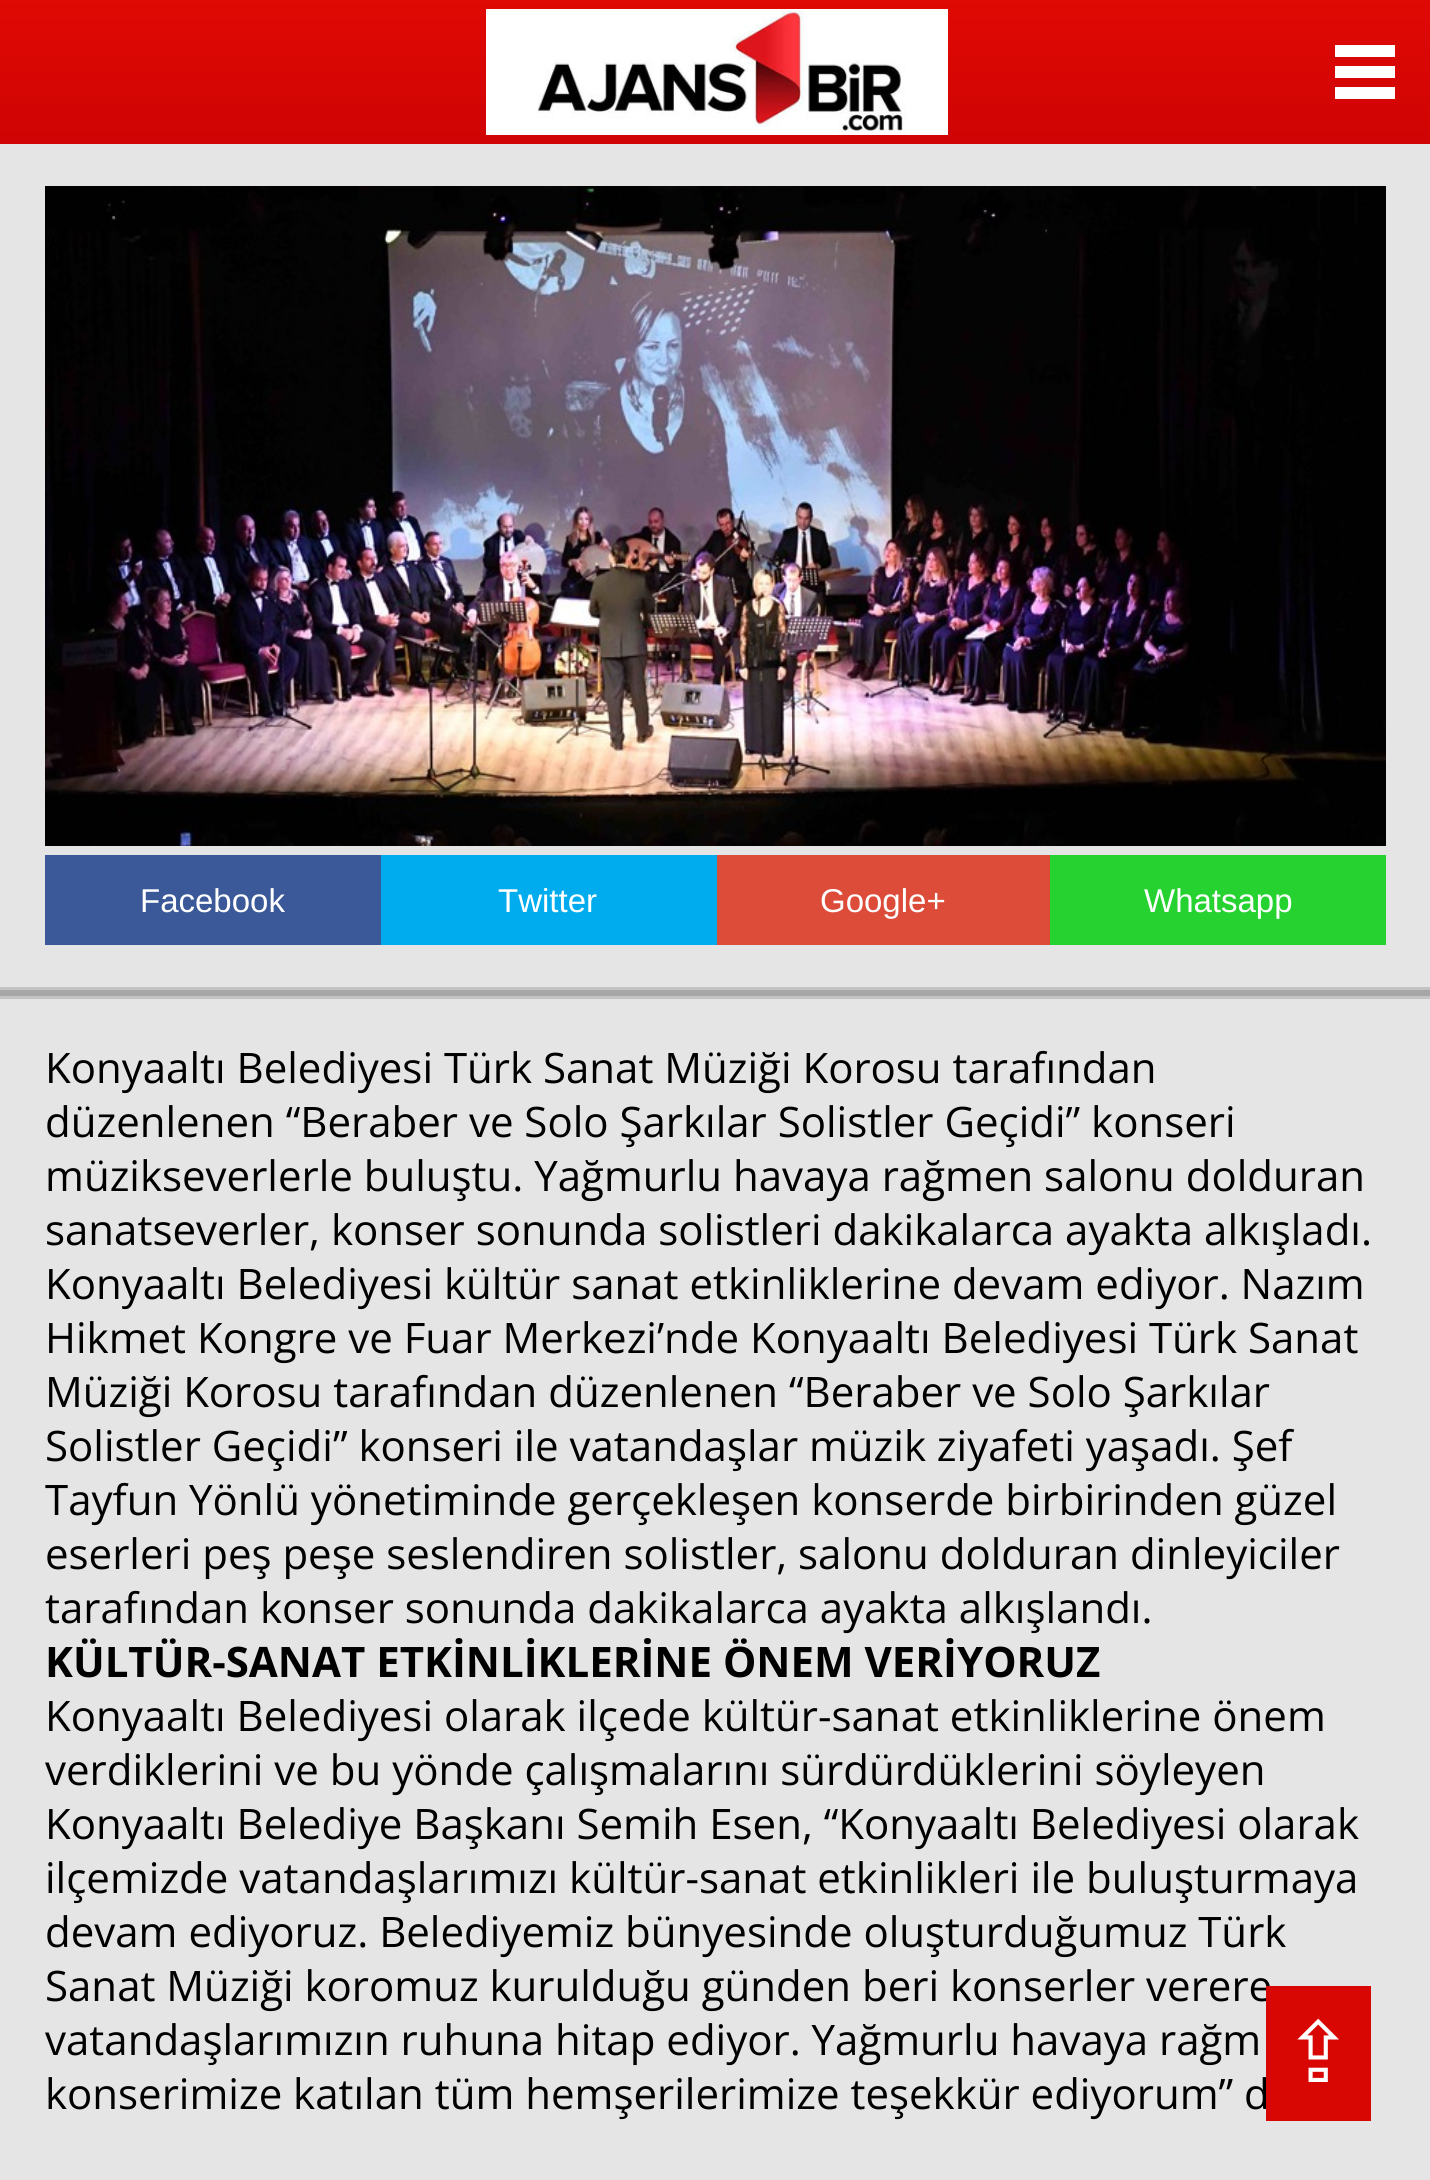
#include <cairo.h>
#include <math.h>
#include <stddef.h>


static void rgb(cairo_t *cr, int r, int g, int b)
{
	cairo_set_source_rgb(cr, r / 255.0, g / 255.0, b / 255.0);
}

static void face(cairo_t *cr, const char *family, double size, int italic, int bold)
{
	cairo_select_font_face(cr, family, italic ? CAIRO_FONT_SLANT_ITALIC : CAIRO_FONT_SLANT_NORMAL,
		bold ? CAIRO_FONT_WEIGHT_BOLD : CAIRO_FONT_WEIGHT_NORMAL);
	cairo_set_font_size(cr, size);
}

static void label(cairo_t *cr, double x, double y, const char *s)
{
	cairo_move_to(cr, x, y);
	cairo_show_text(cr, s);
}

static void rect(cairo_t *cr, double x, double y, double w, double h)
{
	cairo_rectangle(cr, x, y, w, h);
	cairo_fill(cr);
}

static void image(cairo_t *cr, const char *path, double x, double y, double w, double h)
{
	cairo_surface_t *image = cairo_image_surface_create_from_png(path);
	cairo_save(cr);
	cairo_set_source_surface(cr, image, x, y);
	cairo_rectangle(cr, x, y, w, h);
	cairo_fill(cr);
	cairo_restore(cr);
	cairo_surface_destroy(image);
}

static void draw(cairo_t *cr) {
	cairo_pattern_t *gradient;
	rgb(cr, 229, 229, 229);
	cairo_paint(cr);
	rgb(cr, 195, 195, 195);
	rect(cr, 0, 987, 1430, 3);
	gradient = cairo_pattern_create_linear(716, 0, 716, 144);
	cairo_pattern_add_color_stop_rgba(gradient, 0, 0.878, 0.035, 0.016, 1);
	cairo_pattern_add_color_stop_rgba(gradient, 1, 0.812, 0.016, 0.016, 1);
	cairo_set_source(cr, gradient);
	cairo_pattern_destroy(gradient);
	rect(cr, 0, 0, 1430, 144);
	image(cr, "image0.png", 486, 9, 462, 126);
	rgb(cr, 255, 255, 255);
	rect(cr, 1335, 45, 60, 12);
	rect(cr, 1335, 66, 60, 12);
	rect(cr, 1335, 87, 60, 12);
	image(cr, "image1.png", 45, 186, 1341, 660);
	rgb(cr, 59, 89, 152);
	rect(cr, 45, 855, 336, 90);
	face(cr, "Liberation Sans", 33, 0, 0);
	rgb(cr, 255, 255, 255);
	label(cr, 140, 912, "Facebook");
	rgb(cr, 0, 172, 237);
	rect(cr, 381, 855, 336, 90);
	rgb(cr, 255, 255, 255);
	label(cr, 498, 912, "Twitter");
	rgb(cr, 221, 75, 57);
	rect(cr, 717, 855, 333, 90);
	rgb(cr, 255, 255, 255);
	label(cr, 820, 912, "Google+");
	rgb(cr, 37, 210, 47);
	rect(cr, 1050, 855, 336, 90);
	rgb(cr, 255, 255, 255);
	label(cr, 1144, 912, "Whatsapp");
	rgb(cr, 195, 195, 195);
	rect(cr, 0, 996, 1430, 3);
	rgb(cr, 166, 166, 166);
	rect(cr, 0, 990, 1430, 6);
	face(cr, "Open Sans", 42, 0, 0);
	rgb(cr, 0, 0, 0);
	label(cr, 45, 1083, "Konyaaltı Belediyesi Türk Sanat Müziği Korosu tarafından");
	label(cr, 45, 1137, "düzenlenen “Beraber ve Solo Şarkılar Solistler Geçidi” konseri");
	label(cr, 45, 1191, "müzikseverlerle buluştu. Yağmurlu havaya rağmen salonu dolduran");
	label(cr, 45, 1245, "sanatseverler, konser sonunda solistleri dakikalarca ayakta alkışladı.");
	label(cr, 45, 1299, "Konyaaltı Belediyesi kültür sanat etkinliklerine devam ediyor. Nazım");
	label(cr, 45, 1353, "Hikmet Kongre ve Fuar Merkezi’nde Konyaaltı Belediyesi Türk Sanat");
	label(cr, 45, 1407, "Müziği Korosu tarafından düzenlenen “Beraber ve Solo Şarkılar");
	label(cr, 45, 1461, "Solistler Geçidi” konseri ile vatandaşlar müzik ziyafeti yaşadı. Şef");
	label(cr, 45, 1515, "Tayfun Yönlü yönetiminde gerçekleşen konserde birbirinden güzel");
	label(cr, 45, 1569, "eserleri peş peşe seslendiren solistler, salonu dolduran dinleyiciler");
	label(cr, 45, 1623, "tarafından konser sonunda dakikalarca ayakta alkışlandı.");
	face(cr, "Open Sans", 42, 0, 1);
	label(cr, 45, 1677, "KÜLTÜR-SANAT ETKİNLİKLERİNE ÖNEM VERİYORUZ");
	face(cr, "Open Sans", 42, 0, 0);
	label(cr, 45, 1731, "Konyaaltı Belediyesi olarak ilçede kültür-sanat etkinliklerine önem");
	label(cr, 45, 1785, "verdiklerini ve bu yönde çalışmalarını sürdürdüklerini söyleyen");
	label(cr, 45, 1839, "Konyaaltı Belediye Başkanı Semih Esen, “Konyaaltı Belediyesi olarak");
	label(cr, 45, 1893, "ilçemizde vatandaşlarımızı kültür-sanat etkinlikleri ile buluşturmaya");
	label(cr, 45, 1947, "devam ediyoruz. Belediyemiz bünyesinde oluşturduğumuz Türk");
	label(cr, 45, 2001, "Sanat Müziği koromuz kurulduğu günden beri konserler verere");
	label(cr, 45, 2055, "vatandaşlarımızın ruhuna hitap ediyor. Yağmurlu havaya rağm");
	label(cr, 45, 2109, "konserimize katılan tüm hemşerilerimize teşekkür ediyorum” d");
	rgb(cr, 216, 7, 4);
	rect(cr, 1266, 1986, 105, 135);
	face(cr, "DejaVu Sans", 84, 0, 0);
	rgb(cr, 255, 255, 255);
	label(cr, 1283, 2082, "⇪");
}

int main(void) {
	cairo_surface_t *surface = cairo_image_surface_create(CAIRO_FORMAT_RGB24, 1430, 2180);
	cairo_t *cr = cairo_create(surface);
	cairo_font_options_t *options = cairo_font_options_create();
	cairo_font_options_set_hint_metrics(options, CAIRO_HINT_METRICS_OFF);
	cairo_font_options_set_hint_style(options, CAIRO_HINT_STYLE_NONE);
	cairo_set_font_options(cr, options);
	cairo_set_miter_limit(cr, 4);
	draw(cr);
	cairo_surface_write_to_png(surface, "render.png");
	cairo_font_options_destroy(options);
	cairo_destroy(cr);
	cairo_surface_destroy(surface);
	return 0;
}
